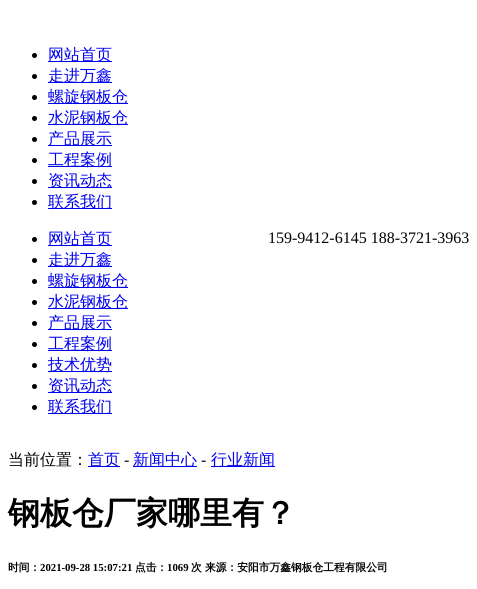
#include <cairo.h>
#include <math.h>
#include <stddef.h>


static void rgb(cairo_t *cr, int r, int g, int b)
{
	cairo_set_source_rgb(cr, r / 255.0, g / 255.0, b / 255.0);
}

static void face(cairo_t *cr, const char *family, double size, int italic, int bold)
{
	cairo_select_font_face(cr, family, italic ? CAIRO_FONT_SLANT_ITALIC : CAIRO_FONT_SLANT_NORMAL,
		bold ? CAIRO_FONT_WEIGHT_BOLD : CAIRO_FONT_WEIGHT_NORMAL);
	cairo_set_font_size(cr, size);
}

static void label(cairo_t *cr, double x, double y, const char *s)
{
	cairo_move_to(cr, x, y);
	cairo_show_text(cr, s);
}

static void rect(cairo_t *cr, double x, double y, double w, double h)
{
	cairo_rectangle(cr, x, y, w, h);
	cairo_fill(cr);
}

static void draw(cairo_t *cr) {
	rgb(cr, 255, 255, 255);
	cairo_paint(cr);
	rgb(cr, 0, 0, 0);
	cairo_arc(cr, 34.5, 55.5, 2.5, 0, 2 * M_PI);
	cairo_fill(cr);
	rgb(cr, 0, 0, 238);
	rect(cr, 48, 61, 64, 1);
	face(cr, "WenQuanYi Zen Hei Medium", 16, 0, 0);
	label(cr, 48, 60, "网站首页");
	rgb(cr, 0, 0, 0);
	cairo_new_path(cr);
	cairo_arc(cr, 34.5, 76.5, 2.5, 0, 2 * M_PI);
	cairo_fill(cr);
	rgb(cr, 0, 0, 238);
	rect(cr, 48, 82, 64, 1);
	label(cr, 48, 81, "走进万鑫");
	rgb(cr, 0, 0, 0);
	cairo_new_path(cr);
	cairo_arc(cr, 34.5, 97.5, 2.5, 0, 2 * M_PI);
	cairo_fill(cr);
	rgb(cr, 0, 0, 238);
	rect(cr, 48, 103, 80, 1);
	label(cr, 48, 102, "螺旋钢板仓");
	rgb(cr, 0, 0, 0);
	cairo_new_path(cr);
	cairo_arc(cr, 34.5, 118.5, 2.5, 0, 2 * M_PI);
	cairo_fill(cr);
	rgb(cr, 0, 0, 238);
	rect(cr, 48, 124, 80, 1);
	label(cr, 48, 123, "水泥钢板仓");
	rgb(cr, 0, 0, 0);
	cairo_new_path(cr);
	cairo_arc(cr, 34.5, 139.5, 2.5, 0, 2 * M_PI);
	cairo_fill(cr);
	rgb(cr, 0, 0, 238);
	rect(cr, 48, 145, 64, 1);
	label(cr, 48, 144, "产品展示");
	rgb(cr, 0, 0, 0);
	cairo_new_path(cr);
	cairo_arc(cr, 34.5, 160.5, 2.5, 0, 2 * M_PI);
	cairo_fill(cr);
	rgb(cr, 0, 0, 238);
	rect(cr, 48, 166, 64, 1);
	label(cr, 48, 165, "工程案例");
	rgb(cr, 0, 0, 0);
	cairo_new_path(cr);
	cairo_arc(cr, 34.5, 181.5, 2.5, 0, 2 * M_PI);
	cairo_fill(cr);
	rgb(cr, 0, 0, 238);
	rect(cr, 48, 187, 64, 1);
	label(cr, 48, 186, "资讯动态");
	rgb(cr, 0, 0, 0);
	cairo_new_path(cr);
	cairo_arc(cr, 34.5, 202.5, 2.5, 0, 2 * M_PI);
	cairo_fill(cr);
	rgb(cr, 0, 0, 238);
	rect(cr, 48, 208, 64, 1);
	label(cr, 48, 207, "联系我们");
	face(cr, "Liberation Serif", 16, 0, 0);
	rgb(cr, 0, 0, 0);
	label(cr, 268, 243, "159-9412-6145 188-3721-3963");
	cairo_new_path(cr);
	cairo_arc(cr, 34.5, 239.5, 2.5, 0, 2 * M_PI);
	cairo_fill(cr);
	rgb(cr, 0, 0, 238);
	rect(cr, 48, 245, 64, 1);
	face(cr, "WenQuanYi Zen Hei Medium", 16, 0, 0);
	label(cr, 48, 244, "网站首页");
	rgb(cr, 0, 0, 0);
	cairo_new_path(cr);
	cairo_arc(cr, 34.5, 260.5, 2.5, 0, 2 * M_PI);
	cairo_fill(cr);
	rgb(cr, 0, 0, 238);
	rect(cr, 48, 266, 64, 1);
	label(cr, 48, 265, "走进万鑫");
	rgb(cr, 0, 0, 0);
	cairo_new_path(cr);
	cairo_arc(cr, 34.5, 281.5, 2.5, 0, 2 * M_PI);
	cairo_fill(cr);
	rgb(cr, 0, 0, 238);
	rect(cr, 48, 287, 80, 1);
	label(cr, 48, 286, "螺旋钢板仓");
	rgb(cr, 0, 0, 0);
	cairo_new_path(cr);
	cairo_arc(cr, 34.5, 302.5, 2.5, 0, 2 * M_PI);
	cairo_fill(cr);
	rgb(cr, 0, 0, 238);
	rect(cr, 48, 308, 80, 1);
	label(cr, 48, 307, "水泥钢板仓");
	rgb(cr, 0, 0, 0);
	cairo_new_path(cr);
	cairo_arc(cr, 34.5, 323.5, 2.5, 0, 2 * M_PI);
	cairo_fill(cr);
	rgb(cr, 0, 0, 238);
	rect(cr, 48, 329, 64, 1);
	label(cr, 48, 328, "产品展示");
	rgb(cr, 0, 0, 0);
	cairo_new_path(cr);
	cairo_arc(cr, 34.5, 344.5, 2.5, 0, 2 * M_PI);
	cairo_fill(cr);
	rgb(cr, 0, 0, 238);
	rect(cr, 48, 350, 64, 1);
	label(cr, 48, 349, "工程案例");
	rgb(cr, 0, 0, 0);
	cairo_new_path(cr);
	cairo_arc(cr, 34.5, 365.5, 2.5, 0, 2 * M_PI);
	cairo_fill(cr);
	rgb(cr, 0, 0, 238);
	rect(cr, 48, 371, 64, 1);
	label(cr, 48, 370, "技术优势");
	rgb(cr, 0, 0, 0);
	cairo_new_path(cr);
	cairo_arc(cr, 34.5, 386.5, 2.5, 0, 2 * M_PI);
	cairo_fill(cr);
	rgb(cr, 0, 0, 238);
	rect(cr, 48, 392, 64, 1);
	label(cr, 48, 391, "资讯动态");
	rgb(cr, 0, 0, 0);
	cairo_new_path(cr);
	cairo_arc(cr, 34.5, 407.5, 2.5, 0, 2 * M_PI);
	cairo_fill(cr);
	rgb(cr, 0, 0, 238);
	rect(cr, 48, 413, 64, 1);
	label(cr, 48, 412, "联系我们");
	rgb(cr, 0, 0, 0);
	label(cr, 8, 465, "当前位置：");
	rgb(cr, 0, 0, 238);
	rect(cr, 88, 466, 32, 1);
	label(cr, 88, 465, "首页");
	face(cr, "Liberation Serif", 16, 0, 0);
	rgb(cr, 0, 0, 0);
	label(cr, 124, 465, "-");
	rgb(cr, 0, 0, 238);
	rect(cr, 133, 466, 64, 1);
	face(cr, "WenQuanYi Zen Hei Medium", 16, 0, 0);
	label(cr, 133, 465, "新闻中心");
	face(cr, "Liberation Serif", 16, 0, 0);
	rgb(cr, 0, 0, 0);
	label(cr, 201, 465, "-");
	rgb(cr, 0, 0, 238);
	rect(cr, 211, 466, 64, 1);
	face(cr, "WenQuanYi Zen Hei Medium", 16, 0, 0);
	label(cr, 211, 465, "行业新闻");
	face(cr, "WenQuanYi Zen Hei", 32, 0, 1);
	rgb(cr, 0, 0, 0);
	label(cr, 8, 524, "钢板仓厂家哪里有？");
	face(cr, "WenQuanYi Zen Hei", 10.75, 0, 1);
	label(cr, 8, 571, "时间：");
	face(cr, "Liberation Serif", 10.75, 0, 1);
	label(cr, 40, 571, "2021-09-28 15:07:21");
	face(cr, "WenQuanYi Zen Hei", 10.75, 0, 1);
	label(cr, 135, 571, "点击：");
	face(cr, "Liberation Serif", 10.75, 0, 1);
	label(cr, 167, 571, "1069");
	face(cr, "WenQuanYi Zen Hei", 10.75, 0, 1);
	label(cr, 191, 571, "次");
	label(cr, 205, 571, "来源：安阳市万鑫钢板仓工程有限公司");
}

int main(void) {
	cairo_surface_t *surface = cairo_image_surface_create(CAIRO_FORMAT_RGB24, 477, 589);
	cairo_t *cr = cairo_create(surface);
	cairo_font_options_t *options = cairo_font_options_create();
	cairo_font_options_set_hint_metrics(options, CAIRO_HINT_METRICS_OFF);
	cairo_font_options_set_hint_style(options, CAIRO_HINT_STYLE_NONE);
	cairo_set_font_options(cr, options);
	cairo_set_miter_limit(cr, 4);
	draw(cr);
	cairo_surface_write_to_png(surface, "render.png");
	cairo_font_options_destroy(options);
	cairo_destroy(cr);
	cairo_surface_destroy(surface);
	return 0;
}
